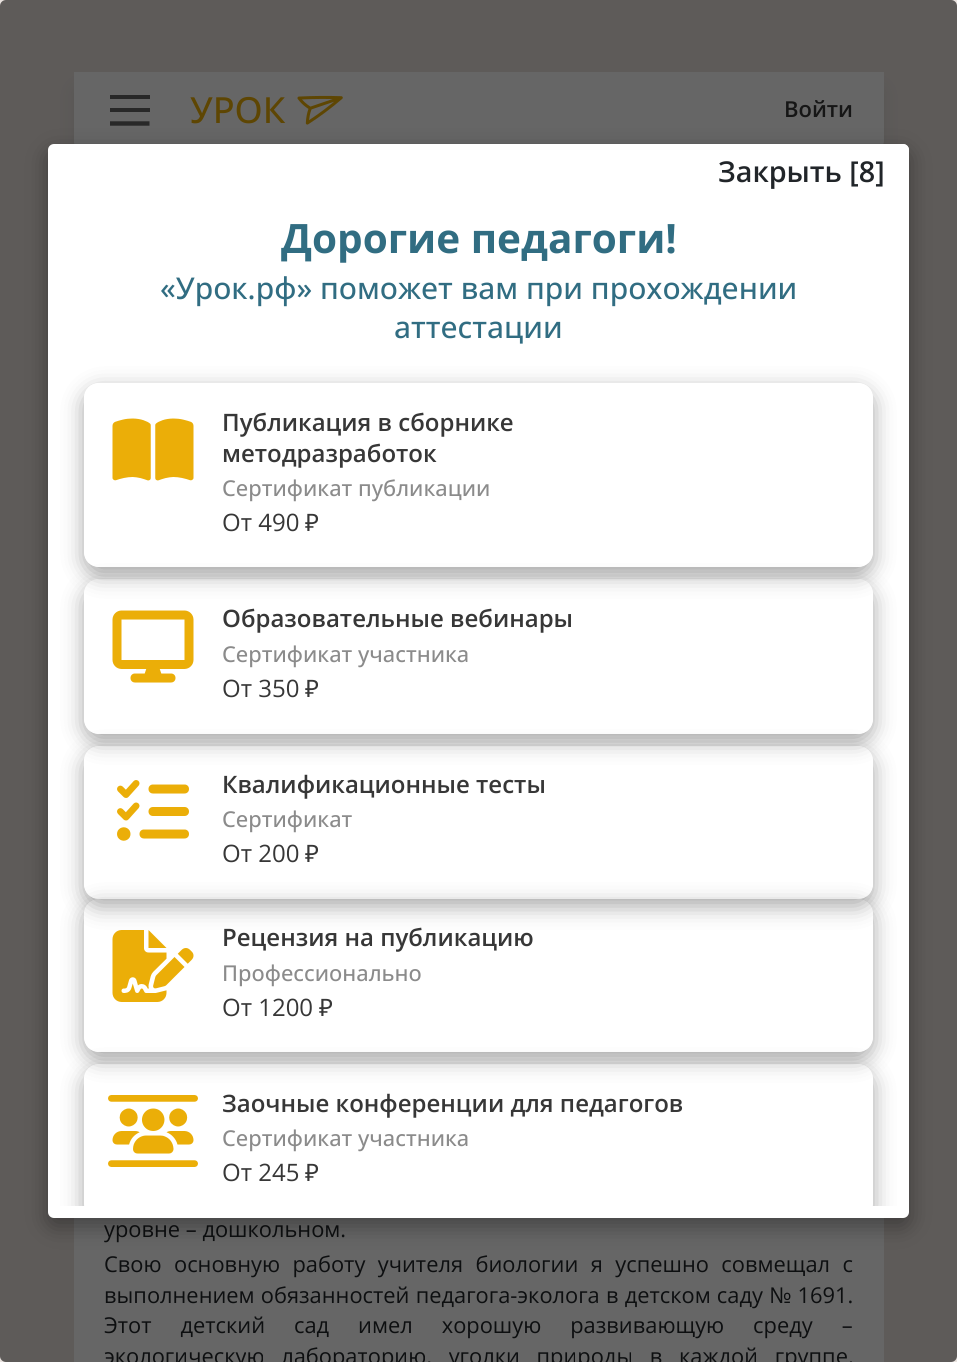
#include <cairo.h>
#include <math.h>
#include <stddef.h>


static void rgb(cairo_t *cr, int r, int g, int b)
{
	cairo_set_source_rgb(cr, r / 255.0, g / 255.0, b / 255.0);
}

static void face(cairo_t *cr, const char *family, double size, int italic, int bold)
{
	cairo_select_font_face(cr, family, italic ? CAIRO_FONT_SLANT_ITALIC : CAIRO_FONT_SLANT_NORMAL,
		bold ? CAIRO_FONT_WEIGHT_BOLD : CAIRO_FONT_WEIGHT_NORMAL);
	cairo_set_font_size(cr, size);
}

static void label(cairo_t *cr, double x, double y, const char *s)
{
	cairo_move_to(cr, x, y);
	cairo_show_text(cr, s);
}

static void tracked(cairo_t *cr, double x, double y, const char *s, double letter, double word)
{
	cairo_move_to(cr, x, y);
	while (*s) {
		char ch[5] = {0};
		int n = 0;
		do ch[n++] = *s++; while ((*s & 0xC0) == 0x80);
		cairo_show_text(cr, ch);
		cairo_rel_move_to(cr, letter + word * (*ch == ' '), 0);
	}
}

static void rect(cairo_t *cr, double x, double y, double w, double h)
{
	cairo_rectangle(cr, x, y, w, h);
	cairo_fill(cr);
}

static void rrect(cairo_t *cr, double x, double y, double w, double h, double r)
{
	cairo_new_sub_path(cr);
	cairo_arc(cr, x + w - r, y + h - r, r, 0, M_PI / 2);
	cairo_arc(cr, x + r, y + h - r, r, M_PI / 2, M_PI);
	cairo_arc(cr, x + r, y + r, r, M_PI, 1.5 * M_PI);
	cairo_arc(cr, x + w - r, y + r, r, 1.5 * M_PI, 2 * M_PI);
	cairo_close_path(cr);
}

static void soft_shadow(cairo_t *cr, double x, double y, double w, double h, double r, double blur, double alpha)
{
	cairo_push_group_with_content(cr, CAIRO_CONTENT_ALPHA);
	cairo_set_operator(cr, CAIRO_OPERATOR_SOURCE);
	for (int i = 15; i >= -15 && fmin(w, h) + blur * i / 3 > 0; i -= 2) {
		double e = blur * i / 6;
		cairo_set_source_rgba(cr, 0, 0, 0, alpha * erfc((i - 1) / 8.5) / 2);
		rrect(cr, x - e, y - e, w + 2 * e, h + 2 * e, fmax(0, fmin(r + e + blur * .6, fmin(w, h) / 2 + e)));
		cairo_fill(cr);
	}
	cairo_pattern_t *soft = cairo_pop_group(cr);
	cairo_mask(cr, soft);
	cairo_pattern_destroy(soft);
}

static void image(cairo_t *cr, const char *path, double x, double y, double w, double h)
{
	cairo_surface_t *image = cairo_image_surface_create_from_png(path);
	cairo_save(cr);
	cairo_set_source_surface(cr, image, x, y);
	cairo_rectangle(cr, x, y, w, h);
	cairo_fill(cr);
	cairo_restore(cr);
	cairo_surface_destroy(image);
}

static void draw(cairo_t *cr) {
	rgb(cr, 234, 227, 223);
	cairo_paint(cr);
	rgb(cr, 126, 126, 126);
	soft_shadow(cr, 74, 87, 810, 75, 6, 7.5, 0.15);
	rgb(cr, 255, 255, 255);
	cairo_new_path(cr);
	cairo_move_to(cr, 74, 72);
	cairo_line_to(cr, 884, 72);
	cairo_line_to(cr, 884, 141);
	cairo_curve_to(cr, 884, 144.5, 881.5, 147, 878, 147);
	cairo_line_to(cr, 80, 147);
	cairo_curve_to(cr, 76.5, 147, 74, 144.5, 74, 141);
	cairo_close_path(cr);
	cairo_fill(cr);
	cairo_new_path(cr);
	cairo_move_to(cr, 80, 72);
	cairo_line_to(cr, 495, 72);
	cairo_line_to(cr, 495, 147);
	cairo_line_to(cr, 80, 147);
	cairo_curve_to(cr, 76.5, 147, 74, 144.5, 74, 141);
	cairo_line_to(cr, 74, 78);
	cairo_curve_to(cr, 74, 74.5, 76.5, 72, 80, 72);
	cairo_close_path(cr);
	cairo_fill(cr);
	rgb(cr, 99, 99, 99);
	rect(cr, 110, 95, 40, 4);
	rect(cr, 110, 108, 40, 4);
	cairo_new_path(cr);
	cairo_move_to(cr, 110, 123.5);
	cairo_line_to(cr, 149.5, 123.5);
	cairo_set_line_width(cr, 4.4);
	cairo_stroke(cr);
	face(cr, "Open Sans Medium", 36, 0, 0);
	rgb(cr, 235, 174, 8);
	label(cr, 190, 123, "УРОК");
	image(cr, "image0.png", 297, 95, 46, 30);
	face(cr, "Open Sans SemiBold", 22, 0, 0);
	rgb(cr, 55, 55, 55);
	label(cr, 784, 117, "Войти");
	rgb(cr, 255, 255, 255);
	rect(cr, 74, 1218, 810, 144);
	face(cr, "Open Sans", 21.85, 0, 0);
	rgb(cr, 33, 37, 41);
	label(cr, 104, 1237, "уровне – дошкольном.");
	tracked(cr, 104, 1272, "Свою основную работу учителя биологии я успешно совмещал с", 0, 6.75);
	tracked(cr, 104, 1303, "выполнением обязанностей педагога-эколога в детском саду № 1691.", 0, 0.5);
	tracked(cr, 104, 1333, "Этот детский сад имел хорошую развивающую среду –", 0, 23.25);
	tracked(cr, 104, 1364, "экологическую лабораторию, уголки природы в каждой группе,", 0, 11);
	cairo_set_source_rgba(cr, 0, 0, 0, 0.6);
	rrect(cr, 0, 0, 957, 1362, 6);
	cairo_fill(cr);
	rgb(cr, 0, 0, 0);
	soft_shadow(cr, 48, 152, 861, 1074, 6, 11, 0.35);
	rgb(cr, 255, 255, 255);
	rrect(cr, 48, 144, 861, 1074, 6);
	cairo_fill(cr);
	cairo_set_source_rgba(cr, 1, 1, 1, 0.85);
	rrect(cr, 695, 144, 214, 62, 6);
	cairo_fill(cr);
	face(cr, "Open Sans SemiBold", 28.75, 0, 0);
	rgb(cr, 33, 37, 41);
	label(cr, 718, 182, "Закрыть [8]");
	face(cr, "Open Sans", 40.5, 0, 1);
	rgb(cr, 49, 109, 130);
	label(cr, 281, 253, "Дорогие педагоги!");
	face(cr, "Open Sans Medium", 30, 0, 0);
	label(cr, 160, 299, "«Урок.рф» поможет вам при прохождении");
	label(cr, 394, 338, "аттестации");
	cairo_save(cr);
	cairo_set_fill_rule(cr, CAIRO_FILL_RULE_EVEN_ODD);
	cairo_new_path(cr);
	cairo_move_to(cr, 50, 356);
	cairo_line_to(cr, 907, 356);
	cairo_line_to(cr, 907, 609);
	cairo_line_to(cr, 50, 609);
	cairo_close_path(cr);
	cairo_move_to(cr, 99, 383);
	cairo_line_to(cr, 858, 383);
	cairo_curve_to(cr, 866.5, 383, 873, 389.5, 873, 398);
	cairo_line_to(cr, 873, 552);
	cairo_curve_to(cr, 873, 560.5, 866.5, 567, 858, 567);
	cairo_line_to(cr, 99, 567);
	cairo_curve_to(cr, 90.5, 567, 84, 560.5, 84, 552);
	cairo_line_to(cr, 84, 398);
	cairo_curve_to(cr, 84, 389.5, 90.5, 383, 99, 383);
	cairo_close_path(cr);
	cairo_clip(cr);
	rgb(cr, 0, 0, 0);
	soft_shadow(cr, 84, 390, 789, 185, 15, 11, 0.35);
	cairo_restore(cr);
	image(cr, "image1.png", 112, 418, 82, 63);
	face(cr, "Open Sans SemiBold", 24, 0, 0);
	rgb(cr, 55, 55, 55);
	label(cr, 222, 431, "Публикация в сборнике");
	label(cr, 222, 462, "методразработок");
	face(cr, "Open Sans Medium", 21.85, 0, 0);
	rgb(cr, 139, 139, 139);
	label(cr, 222, 496, "Сертификат публикации");
	face(cr, "Open Sans", 24, 0, 0);
	rgb(cr, 55, 55, 55);
	label(cr, 222, 531, "От 490");
	face(cr, "Noto Sans", 24, 0, 0);
	label(cr, 305, 531, "₽");
	cairo_save(cr);
	cairo_set_fill_rule(cr, CAIRO_FILL_RULE_EVEN_ODD);
	cairo_new_path(cr);
	cairo_move_to(cr, 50, 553);
	cairo_line_to(cr, 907, 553);
	cairo_line_to(cr, 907, 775);
	cairo_line_to(cr, 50, 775);
	cairo_close_path(cr);
	cairo_move_to(cr, 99, 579);
	cairo_line_to(cr, 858, 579);
	cairo_curve_to(cr, 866.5, 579, 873, 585.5, 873, 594);
	cairo_line_to(cr, 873, 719);
	cairo_curve_to(cr, 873, 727.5, 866.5, 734, 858, 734);
	cairo_line_to(cr, 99, 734);
	cairo_curve_to(cr, 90.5, 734, 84, 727.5, 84, 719);
	cairo_line_to(cr, 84, 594);
	cairo_curve_to(cr, 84, 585.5, 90.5, 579, 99, 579);
	cairo_close_path(cr);
	cairo_clip(cr);
	rgb(cr, 0, 0, 0);
	soft_shadow(cr, 84, 587, 789, 154, 15, 11, 0.35);
	cairo_restore(cr);
	image(cr, "image2.png", 112, 610, 82, 73);
	face(cr, "Open Sans SemiBold", 24, 0, 0);
	label(cr, 222, 627, "Образовательные вебинары");
	face(cr, "Open Sans Medium", 21.85, 0, 0);
	rgb(cr, 139, 139, 139);
	label(cr, 222, 662, "Сертификат участника");
	face(cr, "Open Sans", 24, 0, 0);
	rgb(cr, 55, 55, 55);
	label(cr, 222, 697, "От 350");
	face(cr, "Noto Sans", 24, 0, 0);
	label(cr, 305, 697, "₽");
	cairo_save(cr);
	cairo_set_fill_rule(cr, CAIRO_FILL_RULE_EVEN_ODD);
	cairo_new_path(cr);
	cairo_move_to(cr, 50, 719);
	cairo_line_to(cr, 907, 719);
	cairo_line_to(cr, 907, 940);
	cairo_line_to(cr, 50, 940);
	cairo_close_path(cr);
	cairo_move_to(cr, 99, 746);
	cairo_line_to(cr, 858, 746);
	cairo_curve_to(cr, 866.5, 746, 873, 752.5, 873, 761);
	cairo_line_to(cr, 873, 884);
	cairo_curve_to(cr, 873, 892.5, 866.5, 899, 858, 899);
	cairo_line_to(cr, 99, 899);
	cairo_curve_to(cr, 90.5, 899, 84, 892.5, 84, 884);
	cairo_line_to(cr, 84, 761);
	cairo_curve_to(cr, 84, 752.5, 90.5, 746, 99, 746);
	cairo_close_path(cr);
	cairo_clip(cr);
	rgb(cr, 0, 0, 0);
	soft_shadow(cr, 84, 753, 789, 153, 15, 11, 0.35);
	cairo_restore(cr);
	image(cr, "image3.png", 117, 780, 72, 61);
	face(cr, "Open Sans SemiBold", 24, 0, 0);
	label(cr, 222, 793, "Квалификационные тесты");
	face(cr, "Open Sans Medium", 21.85, 0, 0);
	rgb(cr, 139, 139, 139);
	label(cr, 222, 827, "Сертификат");
	face(cr, "Open Sans", 24, 0, 0);
	rgb(cr, 55, 55, 55);
	label(cr, 222, 862, "От 200");
	face(cr, "Noto Sans", 24, 0, 0);
	label(cr, 305, 862, "₽");
	cairo_save(cr);
	cairo_set_fill_rule(cr, CAIRO_FILL_RULE_EVEN_ODD);
	cairo_new_path(cr);
	cairo_move_to(cr, 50, 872);
	cairo_line_to(cr, 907, 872);
	cairo_line_to(cr, 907, 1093);
	cairo_line_to(cr, 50, 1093);
	cairo_close_path(cr);
	cairo_move_to(cr, 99, 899);
	cairo_line_to(cr, 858, 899);
	cairo_curve_to(cr, 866.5, 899, 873, 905.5, 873, 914);
	cairo_line_to(cr, 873, 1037);
	cairo_curve_to(cr, 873, 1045.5, 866.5, 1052, 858, 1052);
	cairo_line_to(cr, 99, 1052);
	cairo_curve_to(cr, 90.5, 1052, 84, 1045.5, 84, 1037);
	cairo_line_to(cr, 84, 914);
	cairo_curve_to(cr, 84, 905.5, 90.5, 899, 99, 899);
	cairo_close_path(cr);
	cairo_clip(cr);
	rgb(cr, 0, 0, 0);
	soft_shadow(cr, 84, 906, 789, 153, 15, 11, 0.35);
	cairo_restore(cr);
	image(cr, "image4.png", 112, 930, 82, 72);
	face(cr, "Open Sans SemiBold", 24, 0, 0);
	label(cr, 222, 946, "Рецензия на публикацию");
	face(cr, "Open Sans Medium", 21.85, 0, 0);
	rgb(cr, 139, 139, 139);
	label(cr, 222, 981, "Профессионально");
	face(cr, "Open Sans", 24, 0, 0);
	rgb(cr, 55, 55, 55);
	label(cr, 222, 1016, "От 1200");
	face(cr, "Noto Sans", 24, 0, 0);
	label(cr, 319, 1016, "₽");
	cairo_save(cr);
	cairo_rectangle(cr, 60, 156, 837, 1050);
	cairo_clip(cr);
	cairo_set_fill_rule(cr, CAIRO_FILL_RULE_EVEN_ODD);
	cairo_new_path(cr);
	cairo_move_to(cr, 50, 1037);
	cairo_line_to(cr, 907, 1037);
	cairo_line_to(cr, 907, 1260);
	cairo_line_to(cr, 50, 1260);
	cairo_close_path(cr);
	cairo_move_to(cr, 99, 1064);
	cairo_line_to(cr, 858, 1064);
	cairo_curve_to(cr, 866.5, 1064, 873, 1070.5, 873, 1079);
	cairo_line_to(cr, 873, 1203);
	cairo_curve_to(cr, 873, 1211.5, 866.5, 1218, 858, 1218);
	cairo_line_to(cr, 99, 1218);
	cairo_curve_to(cr, 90.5, 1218, 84, 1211.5, 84, 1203);
	cairo_line_to(cr, 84, 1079);
	cairo_curve_to(cr, 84, 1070.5, 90.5, 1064, 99, 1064);
	cairo_close_path(cr);
	cairo_clip(cr);
	rgb(cr, 0, 0, 0);
	soft_shadow(cr, 84, 1071, 789, 155, 15, 11, 0.35);
	cairo_restore(cr);
	image(cr, "image5.png", 108, 1095, 90, 72);
	face(cr, "Open Sans SemiBold", 24, 0, 0);
	label(cr, 222, 1112, "Заочные конференции для педагогов");
	face(cr, "Open Sans Medium", 21.85, 0, 0);
	rgb(cr, 139, 139, 139);
	label(cr, 222, 1146, "Сертификат участника");
	face(cr, "Open Sans", 24, 0, 0);
	rgb(cr, 55, 55, 55);
	label(cr, 222, 1181, "От 245");
	face(cr, "Noto Sans", 24, 0, 0);
	label(cr, 305, 1181, "₽");
}

int main(void) {
	cairo_surface_t *surface = cairo_image_surface_create(CAIRO_FORMAT_RGB24, 957, 1362);
	cairo_t *cr = cairo_create(surface);
	cairo_font_options_t *options = cairo_font_options_create();
	cairo_font_options_set_hint_metrics(options, CAIRO_HINT_METRICS_OFF);
	cairo_font_options_set_hint_style(options, CAIRO_HINT_STYLE_NONE);
	cairo_set_font_options(cr, options);
	cairo_set_miter_limit(cr, 4);
	draw(cr);
	cairo_surface_write_to_png(surface, "render.png");
	cairo_font_options_destroy(options);
	cairo_destroy(cr);
	cairo_surface_destroy(surface);
	return 0;
}
